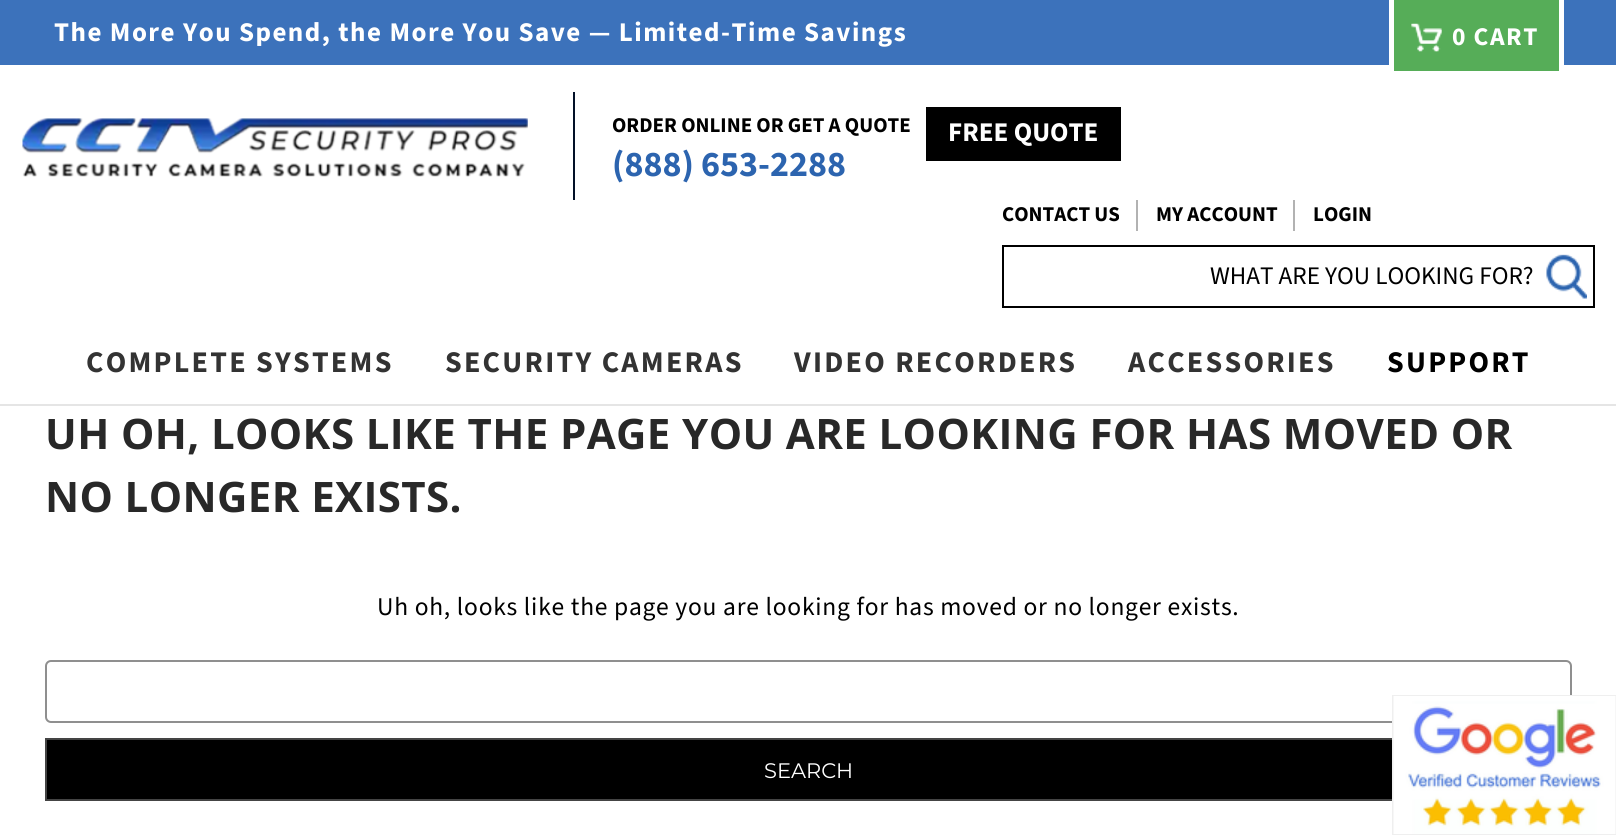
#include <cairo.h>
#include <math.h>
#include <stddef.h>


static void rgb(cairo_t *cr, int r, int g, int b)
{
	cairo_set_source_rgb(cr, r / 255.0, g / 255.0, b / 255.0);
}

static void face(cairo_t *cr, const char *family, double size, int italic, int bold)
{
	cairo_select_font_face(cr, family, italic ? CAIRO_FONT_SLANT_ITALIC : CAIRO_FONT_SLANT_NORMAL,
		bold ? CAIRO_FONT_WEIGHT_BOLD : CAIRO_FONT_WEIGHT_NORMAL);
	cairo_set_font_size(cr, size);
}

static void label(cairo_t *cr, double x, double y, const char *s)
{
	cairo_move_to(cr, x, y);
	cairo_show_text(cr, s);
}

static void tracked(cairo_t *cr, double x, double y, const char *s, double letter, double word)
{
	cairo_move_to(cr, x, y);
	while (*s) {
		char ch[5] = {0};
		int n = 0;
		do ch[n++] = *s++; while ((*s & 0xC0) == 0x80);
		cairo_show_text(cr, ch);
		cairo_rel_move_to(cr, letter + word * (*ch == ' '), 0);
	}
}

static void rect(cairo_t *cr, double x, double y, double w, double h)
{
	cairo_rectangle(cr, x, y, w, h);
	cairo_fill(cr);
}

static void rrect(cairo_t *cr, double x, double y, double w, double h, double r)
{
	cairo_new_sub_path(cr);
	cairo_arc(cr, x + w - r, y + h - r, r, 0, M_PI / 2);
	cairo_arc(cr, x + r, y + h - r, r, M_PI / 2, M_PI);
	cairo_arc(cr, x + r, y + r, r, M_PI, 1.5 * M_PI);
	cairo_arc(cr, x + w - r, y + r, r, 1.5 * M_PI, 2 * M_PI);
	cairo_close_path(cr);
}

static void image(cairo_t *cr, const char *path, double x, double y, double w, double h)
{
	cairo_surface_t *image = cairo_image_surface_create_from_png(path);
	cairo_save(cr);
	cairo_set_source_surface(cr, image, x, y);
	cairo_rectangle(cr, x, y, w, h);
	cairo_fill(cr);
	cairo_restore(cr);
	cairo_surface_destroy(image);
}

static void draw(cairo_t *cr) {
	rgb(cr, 255, 255, 255);
	cairo_paint(cr);
	rgb(cr, 229, 229, 229);
	rect(cr, 0, 404, 1616, 2);
	rgb(cr, 60, 114, 187);
	rect(cr, 0, 0, 1616, 65);
	face(cr, "Source Sans 3", 27, 0, 1);
	rgb(cr, 255, 255, 255);
	tracked(cr, 54, 41, "The More You Spend, the More You Save — Limited-Time Savings", 1.5, 0);
	rgb(cr, 86, 173, 88);
	rect(cr, 1394, 0, 165, 71);
	rgb(cr, 255, 255, 255);
	rect(cr, 1559, 0, 5, 71);
	rect(cr, 1389, 0, 5, 71);
	image(cr, "image1.png", 1411, 23, 31, 29);
	image(cr, "image0.png", 1411, 23, 31, 29);
	face(cr, "Source Sans 3", 25.5, 0, 1);
	tracked(cr, 1452, 45, "0 CART", 1.5, 0);
	image(cr, "image2.png", 22, 118, 506, 59);
	rgb(cr, 2, 16, 39);
	rect(cr, 573, 92, 2, 108);
	face(cr, "Source Sans 3", 21, 0, 1);
	rgb(cr, 0, 0, 0);
	label(cr, 612, 132, "ORDER ONLINE OR GET A QUOTE");
	face(cr, "Source Sans 3", 36, 0, 1);
	rgb(cr, 44, 100, 175);
	label(cr, 612, 176, "(888) 653-2288");
	rgb(cr, 0, 0, 0);
	rect(cr, 926, 107, 195, 54);
	face(cr, "Source Sans 3", 27, 0, 1);
	rgb(cr, 255, 255, 255);
	label(cr, 948, 141, "FREE QUOTE");
	rgb(cr, 178, 178, 178);
	rect(cr, 1136, 200, 2, 31);
	face(cr, "Source Sans 3", 21, 0, 1);
	rgb(cr, 0, 0, 0);
	label(cr, 1002, 221, "CONTACT US");
	rgb(cr, 178, 178, 178);
	rect(cr, 1293, 200, 2, 31);
	rgb(cr, 0, 0, 0);
	label(cr, 1156, 221, "MY ACCOUNT");
	label(cr, 1313, 221, "LOGIN");
	cairo_rectangle(cr, 1003, 246, 591, 61);
	cairo_stroke(cr);
	face(cr, "Source Sans 3", 25.25, 0, 0);
	label(cr, 1210, 284, "WHAT ARE YOU LOOKING FOR?");
	image(cr, "image3.png", 1546, 254, 41, 45);
	face(cr, "Source Sans 3", 30, 0, 1);
	rgb(cr, 51, 51, 51);
	tracked(cr, 86, 372, "COMPLETE SYSTEMS", 2.25, 0);
	tracked(cr, 445, 372, "SECURITY CAMERAS", 2.25, 0);
	tracked(cr, 794, 372, "VIDEO RECORDERS", 2.25, 0);
	tracked(cr, 1128, 372, "ACCESSORIES", 2.25, 0);
	rgb(cr, 0, 0, 0);
	tracked(cr, 1387, 372, "SUPPORT", 2.25, 0);
	face(cr, "Open Sans", 42, 0, 1);
	rgb(cr, 40, 40, 40);
	tracked(cr, 45, 449, "UH OH, LOOKS LIKE THE PAGE YOU ARE LOOKING FOR HAS MOVED OR", 0.38, 0);
	tracked(cr, 45, 512, "NO LONGER EXISTS.", 0.38, 0);
	face(cr, "Source Sans 3", 25.5, 0, 0);
	rgb(cr, 0, 0, 0);
	tracked(cr, 377, 615, "Uh oh, looks like the page you are looking for has moved or no longer exists.", 0.75, 0);
	rrect(cr, 46, 661, 1525, 61, 5);
	rgb(cr, 143, 143, 143);
	cairo_stroke(cr);
	rgb(cr, 0, 0, 0);
	rect(cr, 47, 740, 1345, 59);
	cairo_rectangle(cr, 46, 739, 1525, 61);
	rgb(cr, 68, 68, 68);
	cairo_stroke(cr);
	face(cr, "Montserrat", 21, 0, 0);
	rgb(cr, 255, 255, 255);
	label(cr, 764, 778, "SEARCH");
	cairo_rectangle(cr, 1393, 696, 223, 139);
	rgb(cr, 239, 239, 239);
	cairo_stroke(cr);
	image(cr, "image4.png", 1393, 696, 223, 138);
}

int main(void) {
	cairo_surface_t *surface = cairo_image_surface_create(CAIRO_FORMAT_RGB24, 1616, 835);
	cairo_t *cr = cairo_create(surface);
	cairo_font_options_t *options = cairo_font_options_create();
	cairo_font_options_set_hint_metrics(options, CAIRO_HINT_METRICS_OFF);
	cairo_font_options_set_hint_style(options, CAIRO_HINT_STYLE_NONE);
	cairo_set_font_options(cr, options);
	cairo_set_miter_limit(cr, 4);
	draw(cr);
	cairo_surface_write_to_png(surface, "render.png");
	cairo_font_options_destroy(options);
	cairo_destroy(cr);
	cairo_surface_destroy(surface);
	return 0;
}
